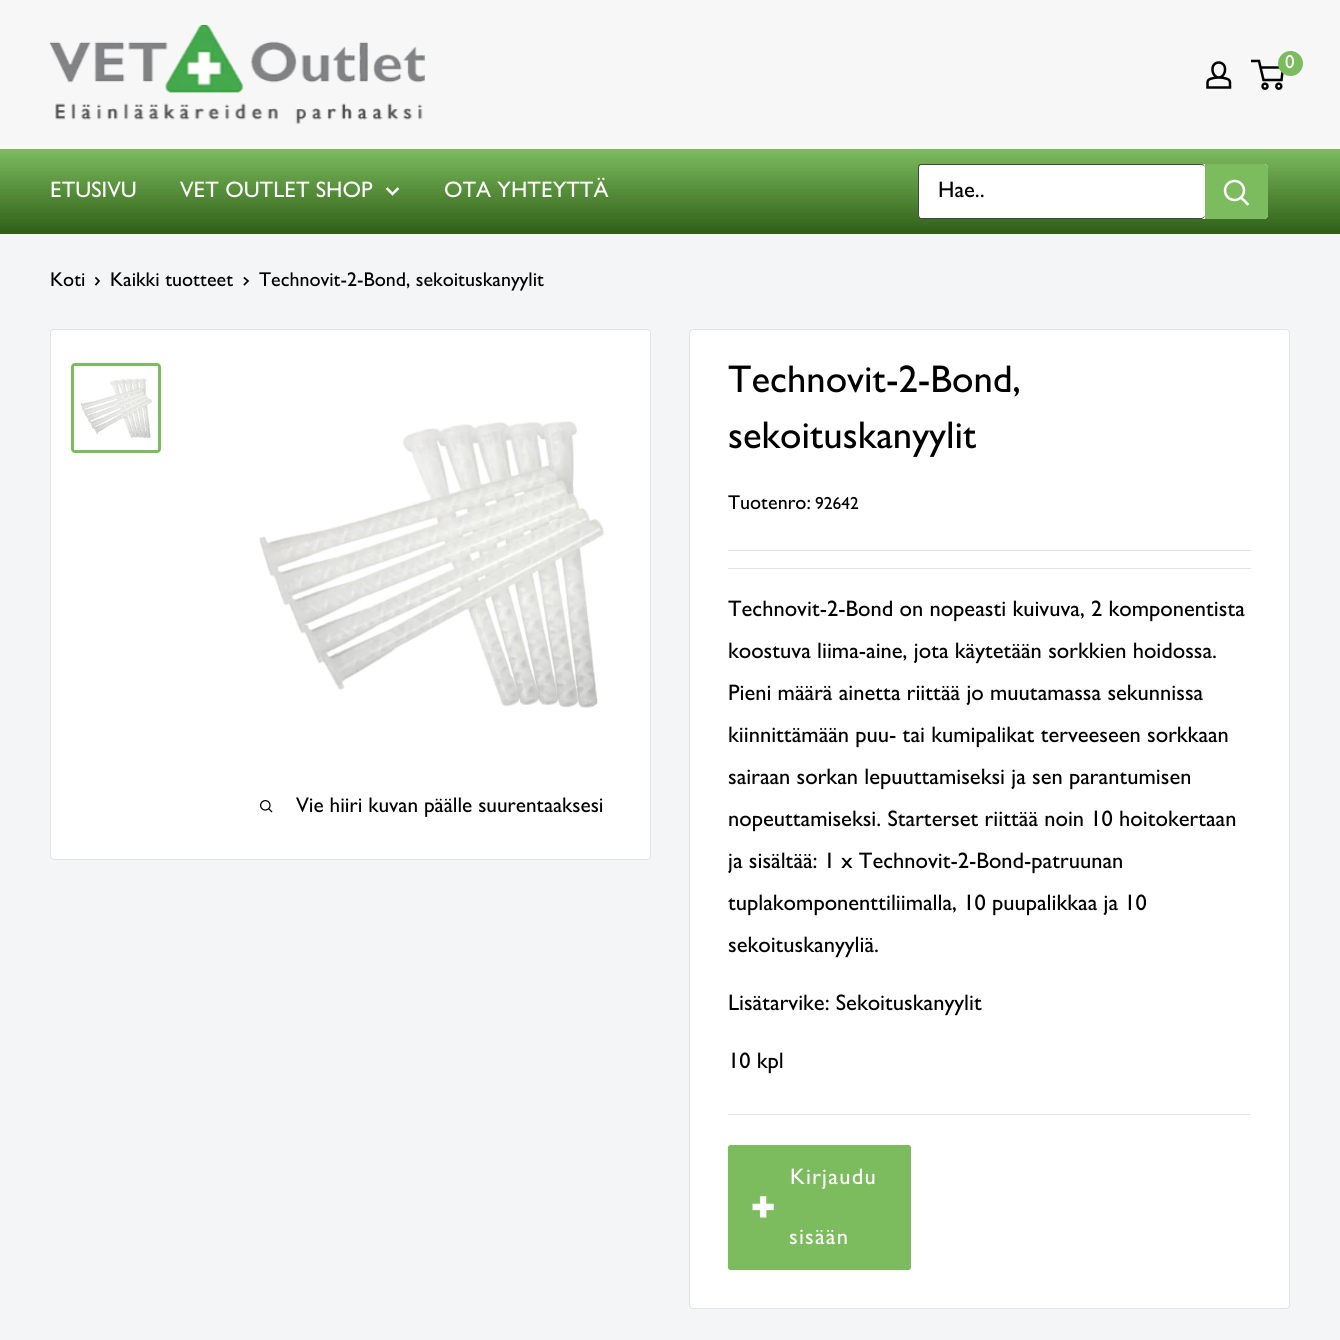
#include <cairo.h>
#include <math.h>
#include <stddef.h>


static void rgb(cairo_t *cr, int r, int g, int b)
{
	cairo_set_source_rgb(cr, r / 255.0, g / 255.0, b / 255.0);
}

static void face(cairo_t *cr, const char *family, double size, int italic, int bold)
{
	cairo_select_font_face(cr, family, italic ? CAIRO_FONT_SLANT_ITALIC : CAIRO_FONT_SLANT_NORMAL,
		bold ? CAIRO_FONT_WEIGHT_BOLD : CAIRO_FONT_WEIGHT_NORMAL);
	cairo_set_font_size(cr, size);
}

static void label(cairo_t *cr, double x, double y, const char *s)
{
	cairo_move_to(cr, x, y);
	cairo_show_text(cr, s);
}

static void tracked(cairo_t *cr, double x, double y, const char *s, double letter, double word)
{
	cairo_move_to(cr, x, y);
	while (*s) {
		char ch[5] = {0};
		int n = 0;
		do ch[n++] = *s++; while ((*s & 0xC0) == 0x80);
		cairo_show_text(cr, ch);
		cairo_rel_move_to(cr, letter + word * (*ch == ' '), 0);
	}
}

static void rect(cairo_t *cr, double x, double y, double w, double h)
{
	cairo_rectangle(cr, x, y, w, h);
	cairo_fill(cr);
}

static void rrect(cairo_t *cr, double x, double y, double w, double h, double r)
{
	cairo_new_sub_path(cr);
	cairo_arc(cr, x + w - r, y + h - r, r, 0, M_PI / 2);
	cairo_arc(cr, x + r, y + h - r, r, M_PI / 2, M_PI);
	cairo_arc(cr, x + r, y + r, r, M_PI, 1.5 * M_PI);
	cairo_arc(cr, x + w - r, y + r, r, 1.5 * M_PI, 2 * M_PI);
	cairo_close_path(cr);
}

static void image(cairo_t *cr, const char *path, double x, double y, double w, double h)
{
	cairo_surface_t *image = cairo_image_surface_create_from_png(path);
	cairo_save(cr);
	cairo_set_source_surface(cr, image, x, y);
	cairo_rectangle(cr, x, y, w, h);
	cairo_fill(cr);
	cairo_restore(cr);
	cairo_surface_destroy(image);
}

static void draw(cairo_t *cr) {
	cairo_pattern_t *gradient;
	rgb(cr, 243, 245, 246);
	cairo_paint(cr);
	rgb(cr, 247, 247, 247);
	rect(cr, 0, 0, 1340, 149);
	image(cr, "image0.png", 50, 25, 375, 99);
	image(cr, "image1.png", 1206, 61, 26, 28);
	cairo_arc(cr, 1265, 86.2, 2.5, 0, 2 * M_PI);
	rgb(cr, 0, 0, 0);
	cairo_set_line_width(cr, 2.5);
	cairo_stroke(cr);
	cairo_arc(cr, 1278.8, 86.2, 2.5, 0, 2 * M_PI);
	cairo_stroke(cr);
	cairo_new_path(cr);
	cairo_move_to(cr, 1260.5, 67.5);
	cairo_line_to(cr, 1283, 67.5);
	cairo_line_to(cr, 1281.5, 80);
	cairo_line_to(cr, 1263.5, 80);
	cairo_line_to(cr, 1259, 61);
	cairo_line_to(cr, 1251, 61);
	cairo_stroke(cr);
	rgb(cr, 124, 188, 94);
	cairo_arc(cr, 1290.5, 63.5, 12.5, 0, 2 * M_PI);
	cairo_fill(cr);
	face(cr, "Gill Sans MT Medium", 19, 0, 0);
	rgb(cr, 255, 255, 255);
	label(cr, 1285, 68, "0");
	gradient = cairo_pattern_create_linear(670, 149, 670, 234);
	cairo_pattern_add_color_stop_rgba(gradient, 0, 0.486, 0.737, 0.369, 1);
	cairo_pattern_add_color_stop_rgba(gradient, 1, 0.184, 0.369, 0.09, 1);
	cairo_set_source(cr, gradient);
	cairo_pattern_destroy(gradient);
	rect(cr, 0, 149, 1340, 85);
	face(cr, "Gill Sans MT Medium", 22.5, 0, 0);
	rgb(cr, 255, 255, 255);
	label(cr, 50, 197, "ETUSIVU");
	label(cr, 180, 197, "VET OUTLET SHOP");
	cairo_new_path(cr);
	cairo_move_to(cr, 397.5, 189);
	cairo_line_to(cr, 392.5, 194);
	cairo_line_to(cr, 387.5, 189);
	cairo_set_line_cap(cr, CAIRO_LINE_CAP_SQUARE);
	cairo_stroke(cr);
	label(cr, 444, 197, "OTA YHTEYTTÄ");
	rrect(cr, 918, 164, 350, 55, 4);
	cairo_fill(cr);
	rgb(cr, 68, 68, 68);
	cairo_set_fill_rule(cr, CAIRO_FILL_RULE_EVEN_ODD);
	cairo_new_path(cr);
	cairo_move_to(cr, 921, 164);
	cairo_line_to(cr, 1201, 164);
	cairo_curve_to(cr, 1203, 164, 1205, 165, 1205, 168);
	cairo_line_to(cr, 1205, 215);
	cairo_curve_to(cr, 1205, 217, 1203, 219, 1201, 219);
	cairo_line_to(cr, 921, 219);
	cairo_curve_to(cr, 919, 219, 918, 217, 918, 215);
	cairo_line_to(cr, 918, 168);
	cairo_curve_to(cr, 918, 165, 919, 164, 921, 164);
	cairo_close_path(cr);
	cairo_move_to(cr, 921, 165);
	cairo_line_to(cr, 1201, 165);
	cairo_curve_to(cr, 1203, 165, 1205, 166, 1205, 168);
	cairo_line_to(cr, 1205, 215);
	cairo_curve_to(cr, 1205, 216, 1203, 218, 1201, 218);
	cairo_line_to(cr, 921, 218);
	cairo_curve_to(cr, 920, 218, 919, 216, 919, 215);
	cairo_line_to(cr, 919, 168);
	cairo_curve_to(cr, 919, 166, 920, 165, 921, 165);
	cairo_close_path(cr);
	cairo_fill(cr);
	rgb(cr, 0, 0, 0);
	label(cr, 938, 197, "Hae..");
	rgb(cr, 124, 188, 94);
	cairo_new_path(cr);
	cairo_move_to(cr, 1205, 164);
	cairo_line_to(cr, 1264, 164);
	cairo_curve_to(cr, 1266, 164, 1268, 166, 1268, 168);
	cairo_line_to(cr, 1268, 215);
	cairo_curve_to(cr, 1268, 217, 1266, 219, 1264, 219);
	cairo_line_to(cr, 1205, 219);
	cairo_close_path(cr);
	cairo_fill(cr);
	cairo_new_path(cr);
	cairo_move_to(cr, 1247.5, 204);
	cairo_line_to(cr, 1241, 197.5);
	rgb(cr, 255, 255, 255);
	cairo_stroke(cr);
	cairo_arc(cr, 1234.5, 190.5, 9.5, 0, 2 * M_PI);
	cairo_set_line_cap(cr, CAIRO_LINE_CAP_BUTT);
	cairo_stroke(cr);
	face(cr, "Gill Sans MT Medium", 20, 0, 0);
	rgb(cr, 0, 0, 0);
	label(cr, 50, 286, "Koti");
	cairo_new_path(cr);
	cairo_move_to(cr, 96, 278);
	cairo_line_to(cr, 99, 281);
	cairo_line_to(cr, 96, 284.5);
	cairo_set_line_width(cr, 1.7);
	cairo_set_line_cap(cr, CAIRO_LINE_CAP_SQUARE);
	cairo_stroke(cr);
	label(cr, 110, 286, "Kaikki tuotteet");
	cairo_new_path(cr);
	cairo_move_to(cr, 244.5, 278);
	cairo_line_to(cr, 248, 281);
	cairo_line_to(cr, 244.5, 284.5);
	cairo_stroke(cr);
	label(cr, 259, 286, "Technovit-2-Bond, sekoituskanyylit");
	rgb(cr, 255, 255, 255);
	rrect(cr, 50.5, 329.5, 600, 530, 3.5);
	cairo_fill_preserve(cr);
	rgb(cr, 225, 227, 228);
	cairo_set_line_width(cr, 1);
	cairo_set_line_cap(cr, CAIRO_LINE_CAP_BUTT);
	cairo_stroke(cr);
	rrect(cr, 72.5, 364.5, 87, 87, 2.5);
	rgb(cr, 124, 188, 94);
	cairo_set_line_width(cr, 3);
	cairo_stroke(cr);
	image(cr, "image2.png", 80, 378, 72, 61);
	image(cr, "image3.png", 259, 421, 345, 287);
	image(cr, "image4.png", 260, 800, 13, 13);
	face(cr, "Gill Sans MT Medium", 21.25, 0, 0);
	rgb(cr, 0, 0, 0);
	label(cr, 296, 812, "Vie hiiri kuvan päälle suurentaaksesi");
	rgb(cr, 255, 255, 255);
	rrect(cr, 689.5, 329.5, 600, 979, 3.5);
	cairo_fill_preserve(cr);
	rgb(cr, 225, 227, 228);
	cairo_set_line_width(cr, 1);
	cairo_stroke(cr);
	face(cr, "Gill Sans MT Medium", 38.75, 0, 0);
	rgb(cr, 0, 0, 0);
	label(cr, 728, 392, "Technovit-2-Bond,");
	label(cr, 728, 448, "sekoituskanyylit");
	face(cr, "Gill Sans MT Medium", 20, 0, 0);
	label(cr, 728, 509, "Tuotenro:");
	face(cr, "Gill Sans MT Medium", 17.5, 0, 0);
	label(cr, 815, 509, "92642");
	rgb(cr, 225, 227, 228);
	rect(cr, 728, 550, 523, 1);
	rect(cr, 728, 568, 523, 1);
	face(cr, "Gill Sans MT Medium", 22.5, 0, 0);
	rgb(cr, 0, 0, 0);
	label(cr, 728, 616, "Technovit-2-Bond on nopeasti kuivuva, 2 komponentista");
	label(cr, 728, 658, "koostuva liima-aine, jota käytetään sorkkien hoidossa.");
	label(cr, 728, 700, "Pieni määrä ainetta riittää jo muutamassa sekunnissa");
	label(cr, 728, 742, "kiinnittämään puu- tai kumipalikat terveeseen sorkkaan");
	label(cr, 728, 784, "sairaan sorkan lepuuttamiseksi ja sen parantumisen");
	label(cr, 728, 826, "nopeuttamiseksi. Starterset riittää noin 10 hoitokertaan");
	label(cr, 728, 868, "ja sisältää: 1 x Technovit-2-Bond-patruunan");
	label(cr, 728, 910, "tuplakomponenttiliimalla, 10 puupalikkaa ja 10");
	label(cr, 728, 952, "sekoituskanyyliä.");
	label(cr, 728, 1010, "Lisätarvike: Sekoituskanyylit");
	label(cr, 728, 1068, "10 kpl");
	rgb(cr, 225, 227, 228);
	rect(cr, 728, 1114, 523, 1);
	rgb(cr, 124, 188, 94);
	rrect(cr, 728, 1145, 183, 125, 2.5);
	cairo_fill(cr);
	image(cr, "image5.png", 752, 1196, 22, 22);
	rgb(cr, 255, 255, 255);
	tracked(cr, 790, 1184, "Kirjaudu", 1.25, 0);
	tracked(cr, 789, 1244, "sisään", 1.25, 0);
}

int main(void) {
	cairo_surface_t *surface = cairo_image_surface_create(CAIRO_FORMAT_RGB24, 1340, 1340);
	cairo_t *cr = cairo_create(surface);
	cairo_font_options_t *options = cairo_font_options_create();
	cairo_font_options_set_hint_metrics(options, CAIRO_HINT_METRICS_OFF);
	cairo_font_options_set_hint_style(options, CAIRO_HINT_STYLE_NONE);
	cairo_set_font_options(cr, options);
	cairo_set_miter_limit(cr, 4);
	draw(cr);
	cairo_surface_write_to_png(surface, "render.png");
	cairo_font_options_destroy(options);
	cairo_destroy(cr);
	cairo_surface_destroy(surface);
	return 0;
}
